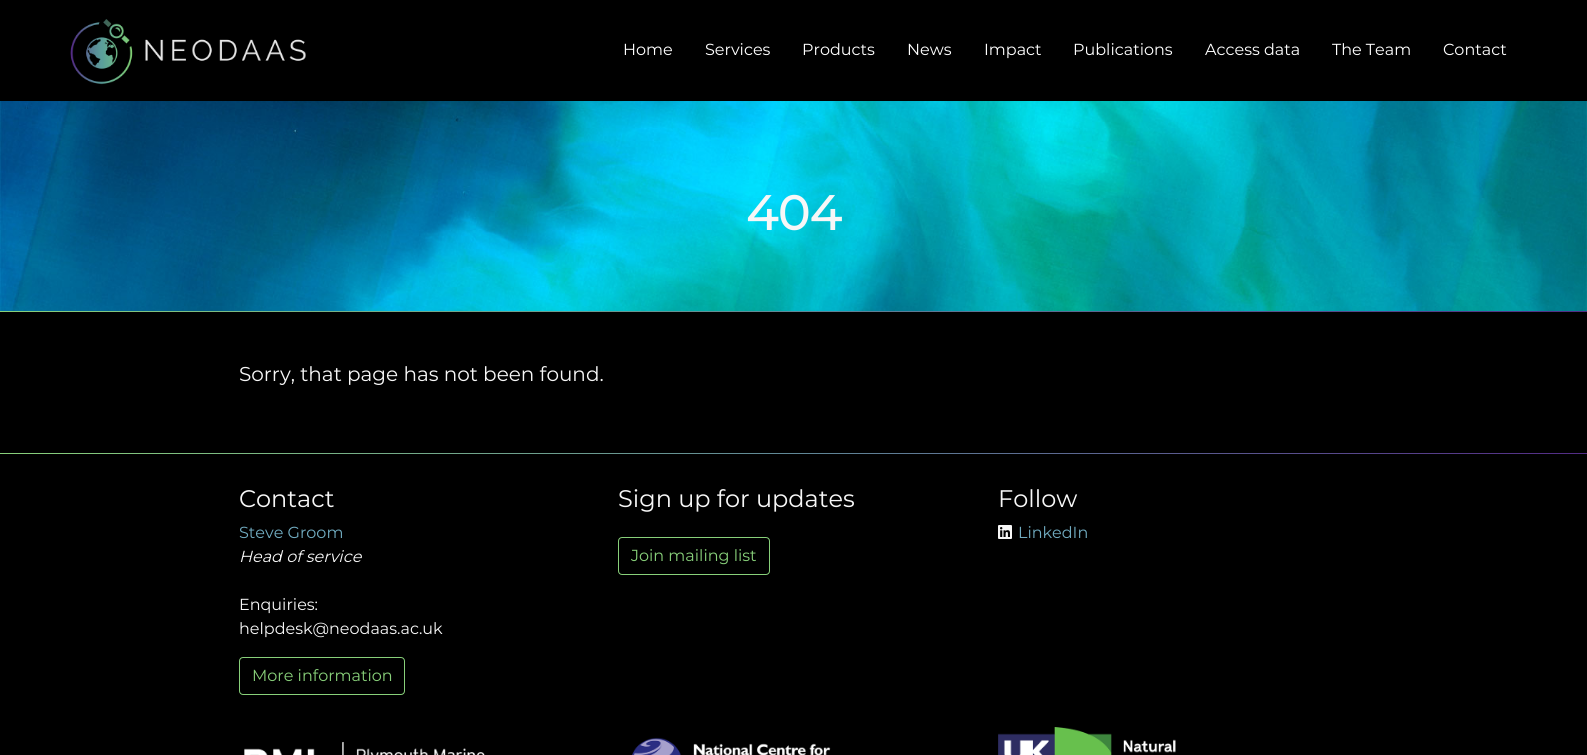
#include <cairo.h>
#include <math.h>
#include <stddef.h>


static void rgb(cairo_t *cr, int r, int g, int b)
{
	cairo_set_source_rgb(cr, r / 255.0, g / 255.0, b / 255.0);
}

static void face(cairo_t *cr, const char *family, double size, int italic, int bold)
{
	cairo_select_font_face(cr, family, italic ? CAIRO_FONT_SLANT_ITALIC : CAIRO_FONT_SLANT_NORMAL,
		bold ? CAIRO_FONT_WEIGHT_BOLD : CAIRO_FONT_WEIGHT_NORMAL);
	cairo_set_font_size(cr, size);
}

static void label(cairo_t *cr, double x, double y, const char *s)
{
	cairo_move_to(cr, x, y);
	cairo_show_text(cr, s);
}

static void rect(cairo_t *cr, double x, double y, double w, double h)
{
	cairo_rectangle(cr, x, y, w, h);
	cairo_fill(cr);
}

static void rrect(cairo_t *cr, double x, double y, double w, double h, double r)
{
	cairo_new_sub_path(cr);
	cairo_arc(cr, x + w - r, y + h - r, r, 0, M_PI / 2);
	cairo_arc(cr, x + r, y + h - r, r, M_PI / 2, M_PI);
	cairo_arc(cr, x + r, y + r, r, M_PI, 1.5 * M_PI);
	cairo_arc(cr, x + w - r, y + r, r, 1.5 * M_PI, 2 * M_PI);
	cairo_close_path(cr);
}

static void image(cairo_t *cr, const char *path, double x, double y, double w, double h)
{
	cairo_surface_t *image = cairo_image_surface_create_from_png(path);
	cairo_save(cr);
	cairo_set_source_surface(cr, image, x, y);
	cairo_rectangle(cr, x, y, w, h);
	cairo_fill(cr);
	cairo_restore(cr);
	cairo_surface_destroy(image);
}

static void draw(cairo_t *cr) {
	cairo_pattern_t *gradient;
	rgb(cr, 0, 0, 0);
	cairo_paint(cr);
	image(cr, "image0.png", 70, 19, 236, 66);
	face(cr, "Montserrat Thin", 16, 0, 0);
	rgb(cr, 255, 255, 255);
	label(cr, 623, 55, "Home");
	label(cr, 705, 55, "Services");
	label(cr, 802, 55, "Products");
	label(cr, 907, 55, "News");
	label(cr, 984, 55, "Impact");
	label(cr, 1073, 55, "Publications");
	label(cr, 1205, 55, "Access data");
	label(cr, 1332, 55, "The Team");
	label(cr, 1443, 55, "Contact");
	image(cr, "image1.png", 0, 101, 1587, 210);
	face(cr, "Montserrat", 48, 0, 1);
	rgb(cr, 247, 247, 247);
	label(cr, 746, 230, "404");
	gradient = cairo_pattern_create_linear(1587, 312, 0, 311);
	cairo_pattern_add_color_stop_rgba(gradient, 0, 0.325, 0.173, 0.525, 1);
	cairo_pattern_add_color_stop_rgba(gradient, 0.5, 0.376, 0.533, 0.592, 1);
	cairo_pattern_add_color_stop_rgba(gradient, 1, 0.533, 0.816, 0.478, 1);
	cairo_set_source(cr, gradient);
	cairo_pattern_destroy(gradient);
	rect(cr, 0, 311, 1587, 1);
	face(cr, "Montserrat Thin", 20, 0, 0);
	rgb(cr, 247, 247, 247);
	label(cr, 239, 381, "Sorry, that page has not been found.");
	gradient = cairo_pattern_create_linear(1587, 454, 0, 453);
	cairo_pattern_add_color_stop_rgba(gradient, 0, 0.325, 0.173, 0.525, 1);
	cairo_pattern_add_color_stop_rgba(gradient, 0.5, 0.376, 0.533, 0.592, 1);
	cairo_pattern_add_color_stop_rgba(gradient, 1, 0.533, 0.816, 0.478, 1);
	cairo_set_source(cr, gradient);
	cairo_pattern_destroy(gradient);
	rect(cr, 0, 453, 1587, 1);
	face(cr, "Montserrat Thin", 24, 0, 0);
	rgb(cr, 247, 247, 247);
	label(cr, 239, 507, "Contact");
	face(cr, "Montserrat Thin", 16, 0, 0);
	rgb(cr, 113, 172, 193);
	label(cr, 239, 538, "Steve Groom");
	face(cr, "Montserrat Thin", 16, 1, 0);
	rgb(cr, 247, 247, 247);
	label(cr, 239, 562, "Head of service");
	face(cr, "Montserrat Thin", 16, 0, 0);
	label(cr, 239, 610, "Enquiries:");
	label(cr, 239, 634, "helpdesk@neodaas.ac.uk");
	rrect(cr, 239.5, 657.5, 165, 37, 3.5);
	rgb(cr, 136, 208, 122);
	cairo_set_line_width(cr, 1);
	cairo_stroke(cr);
	label(cr, 252, 681, "More information");
	face(cr, "Montserrat Thin", 24, 0, 0);
	rgb(cr, 247, 247, 247);
	label(cr, 618, 507, "Sign up for updates");
	rrect(cr, 618.5, 537.5, 151, 37, 3.5);
	rgb(cr, 136, 208, 122);
	cairo_stroke(cr);
	face(cr, "Montserrat Thin", 16, 0, 0);
	label(cr, 631, 561, "Join mailing list");
	face(cr, "Montserrat Thin", 24, 0, 0);
	rgb(cr, 247, 247, 247);
	label(cr, 998, 507, "Follow");
	image(cr, "image2.png", 998, 525, 14, 14);
	face(cr, "Montserrat Thin", 16, 0, 0);
	rgb(cr, 113, 172, 193);
	label(cr, 1018, 538, "LinkedIn");
	image(cr, "image3.png", 244, 742, 241, 13);
	image(cr, "image4.png", 632, 737, 199, 18);
	image(cr, "image5.png", 998, 727, 178, 28);
}

int main(void) {
	cairo_surface_t *surface = cairo_image_surface_create(CAIRO_FORMAT_RGB24, 1587, 755);
	cairo_t *cr = cairo_create(surface);
	cairo_font_options_t *options = cairo_font_options_create();
	cairo_font_options_set_hint_metrics(options, CAIRO_HINT_METRICS_OFF);
	cairo_font_options_set_hint_style(options, CAIRO_HINT_STYLE_NONE);
	cairo_set_font_options(cr, options);
	cairo_set_miter_limit(cr, 4);
	draw(cr);
	cairo_surface_write_to_png(surface, "render.png");
	cairo_font_options_destroy(options);
	cairo_destroy(cr);
	cairo_surface_destroy(surface);
	return 0;
}
